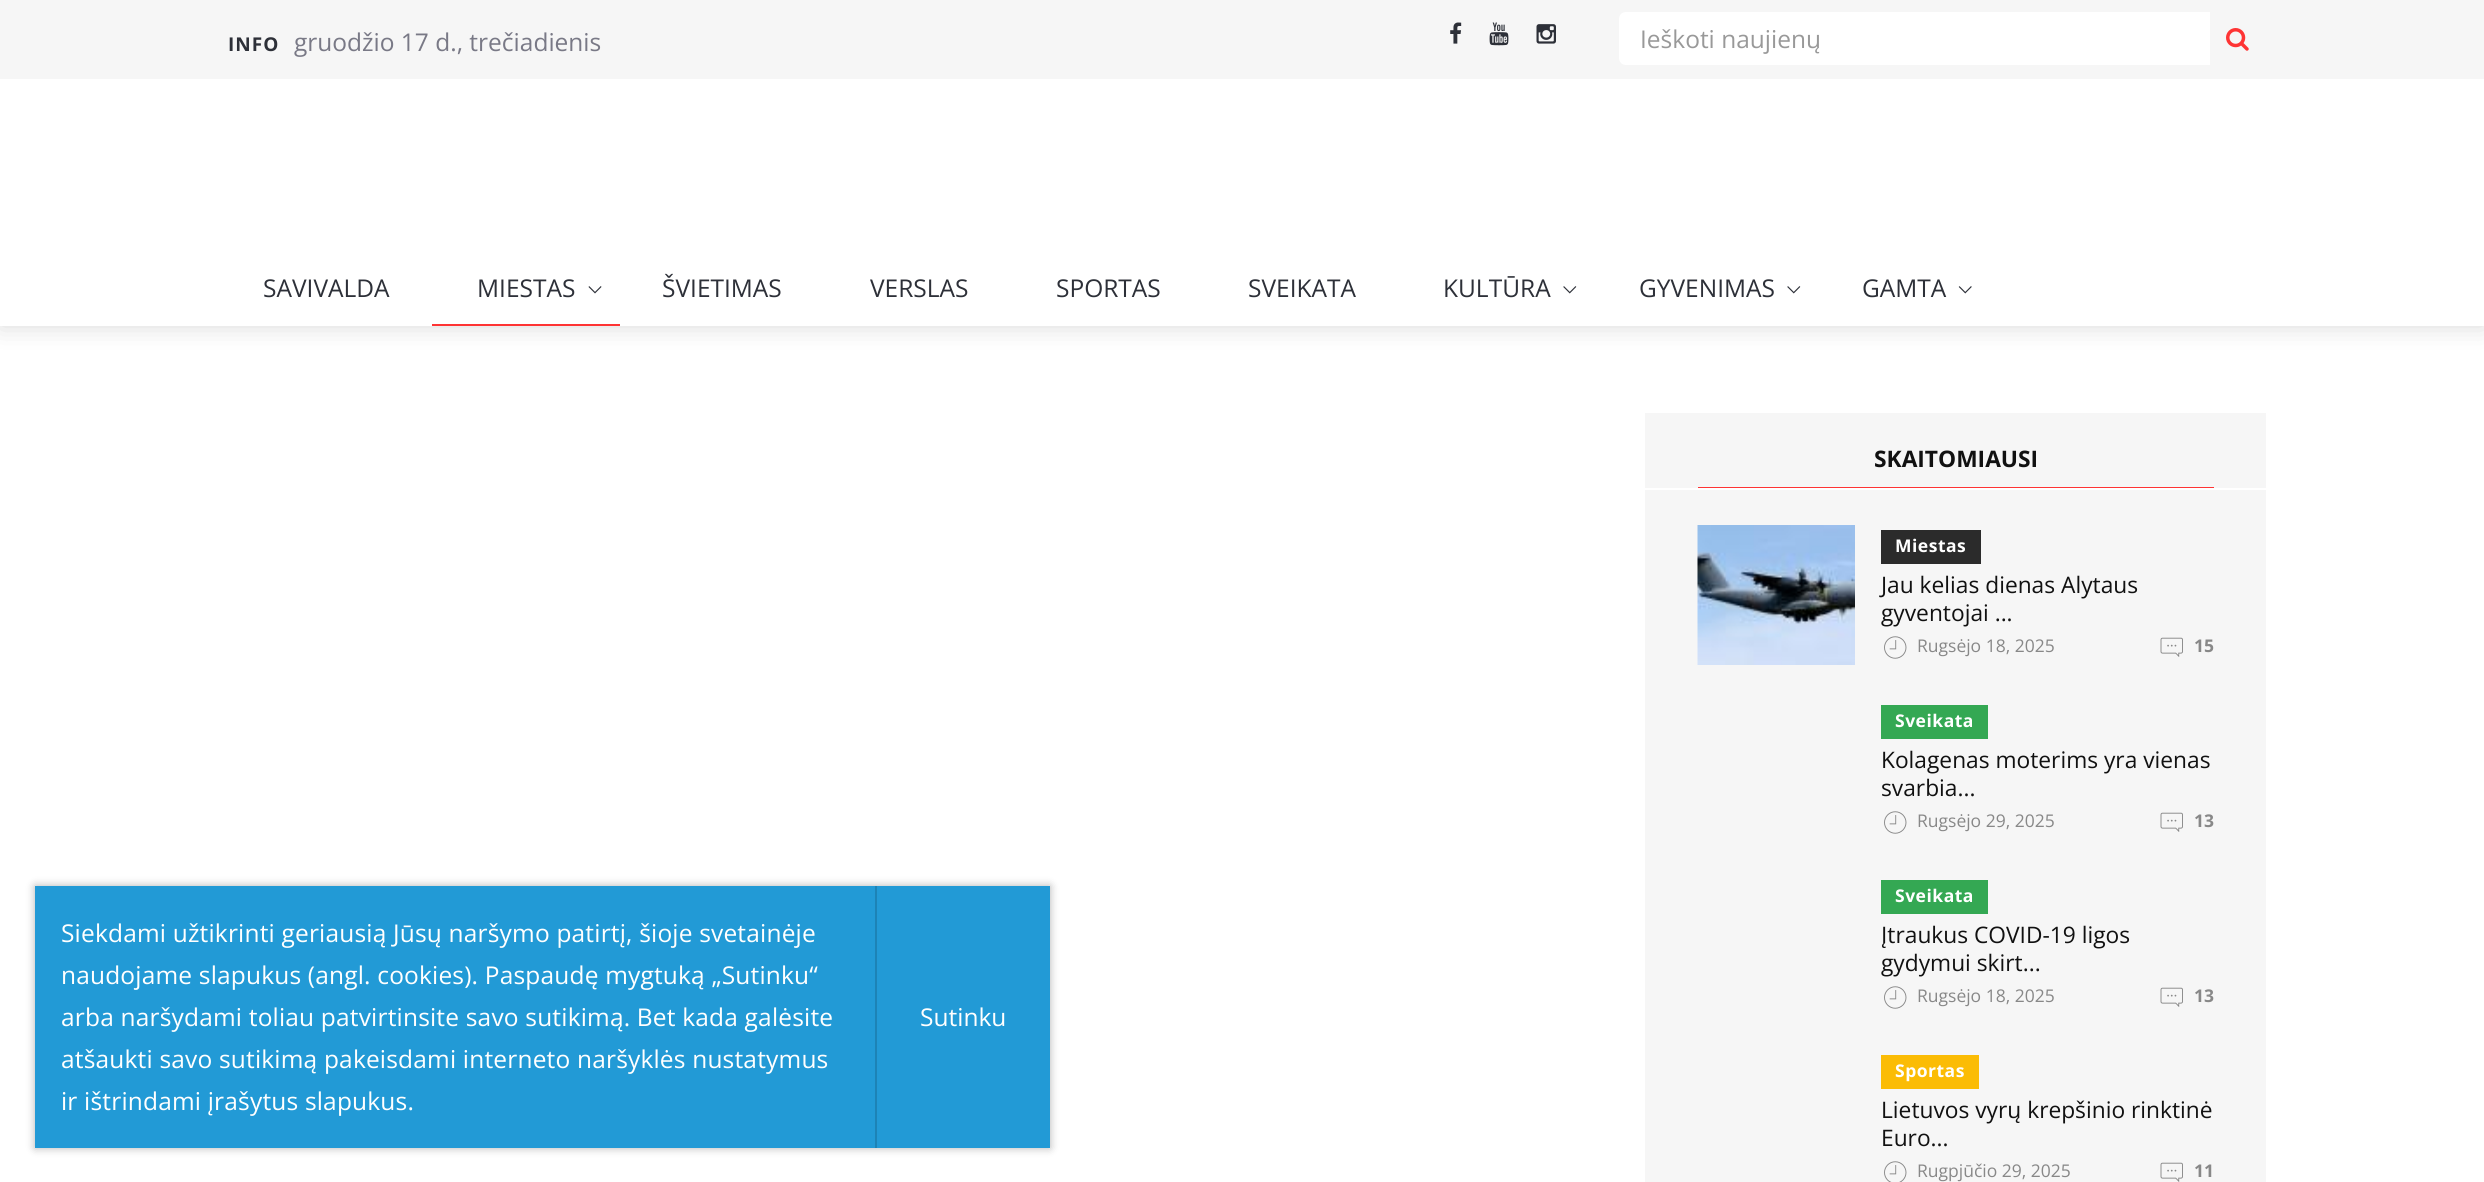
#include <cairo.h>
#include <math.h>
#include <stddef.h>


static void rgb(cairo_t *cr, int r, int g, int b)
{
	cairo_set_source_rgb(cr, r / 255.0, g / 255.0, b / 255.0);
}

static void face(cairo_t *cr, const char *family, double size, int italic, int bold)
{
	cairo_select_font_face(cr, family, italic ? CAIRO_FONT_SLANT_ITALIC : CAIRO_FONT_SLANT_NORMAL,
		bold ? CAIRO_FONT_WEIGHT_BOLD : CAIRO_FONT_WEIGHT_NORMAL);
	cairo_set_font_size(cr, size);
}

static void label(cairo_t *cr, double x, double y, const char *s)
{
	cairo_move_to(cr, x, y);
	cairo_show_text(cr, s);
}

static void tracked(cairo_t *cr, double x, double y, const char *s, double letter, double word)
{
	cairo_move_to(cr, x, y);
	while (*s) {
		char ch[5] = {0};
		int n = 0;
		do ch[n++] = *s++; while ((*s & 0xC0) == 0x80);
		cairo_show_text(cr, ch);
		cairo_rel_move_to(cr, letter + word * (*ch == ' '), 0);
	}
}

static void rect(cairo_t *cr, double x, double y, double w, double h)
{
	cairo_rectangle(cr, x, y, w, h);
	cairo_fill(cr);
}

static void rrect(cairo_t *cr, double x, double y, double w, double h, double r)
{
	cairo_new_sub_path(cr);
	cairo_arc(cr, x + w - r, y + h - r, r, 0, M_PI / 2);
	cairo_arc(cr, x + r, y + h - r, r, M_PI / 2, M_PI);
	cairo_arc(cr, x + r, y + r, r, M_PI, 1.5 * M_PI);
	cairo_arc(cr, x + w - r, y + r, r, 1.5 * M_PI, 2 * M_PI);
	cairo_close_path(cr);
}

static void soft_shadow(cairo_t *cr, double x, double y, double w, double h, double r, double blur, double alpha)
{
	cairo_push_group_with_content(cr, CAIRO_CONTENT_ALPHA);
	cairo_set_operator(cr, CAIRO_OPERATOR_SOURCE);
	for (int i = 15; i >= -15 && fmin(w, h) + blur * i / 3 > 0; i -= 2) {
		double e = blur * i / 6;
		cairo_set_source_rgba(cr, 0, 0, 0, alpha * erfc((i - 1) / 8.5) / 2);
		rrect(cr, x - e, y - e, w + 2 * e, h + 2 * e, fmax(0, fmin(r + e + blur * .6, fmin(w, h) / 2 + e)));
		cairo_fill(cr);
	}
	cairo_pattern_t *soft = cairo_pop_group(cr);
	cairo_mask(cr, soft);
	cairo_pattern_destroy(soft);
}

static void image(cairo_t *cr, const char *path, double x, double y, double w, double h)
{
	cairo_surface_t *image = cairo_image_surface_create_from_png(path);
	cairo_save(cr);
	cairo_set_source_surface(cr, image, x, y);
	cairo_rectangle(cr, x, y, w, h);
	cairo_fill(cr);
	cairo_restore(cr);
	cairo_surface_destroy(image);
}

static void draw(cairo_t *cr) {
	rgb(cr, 255, 255, 255);
	cairo_paint(cr);
	cairo_save(cr);
	cairo_set_fill_rule(cr, CAIRO_FILL_RULE_EVEN_ODD);
	cairo_new_path(cr);
	cairo_move_to(cr, 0, 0);
	cairo_line_to(cr, 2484, 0);
	cairo_line_to(cr, 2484, 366);
	cairo_line_to(cr, 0, 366);
	cairo_close_path(cr);
	cairo_move_to(cr, 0, 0);
	cairo_line_to(cr, 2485, 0);
	cairo_line_to(cr, 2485, 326);
	cairo_line_to(cr, 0, 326);
	cairo_close_path(cr);
	cairo_clip(cr);
	rgb(cr, 0, 0, 0);
	soft_shadow(cr, 0, 0, 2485, 326, 0, 13, 0.15);
	cairo_restore(cr);
	rgb(cr, 246, 246, 246);
	rect(cr, 0, 0, 2484, 79);
	face(cr, "Open Sans", 19, 0, 1);
	rgb(cr, 45, 48, 56);
	tracked(cr, 228, 51, "INFO", 1, 0);
	face(cr, "Open Sans", 24.5, 0, 0);
	rgb(cr, 121, 121, 134);
	label(cr, 294, 51, "gruodžio 17 d., trečiadienis");
	image(cr, "image0.png", 1450, 22, 12, 22);
	image(cr, "image1.png", 1489, 22, 20, 24);
	image(cr, "image2.png", 1536, 24, 20, 20);
	rgb(cr, 255, 255, 255);
	cairo_new_path(cr);
	cairo_move_to(cr, 1626, 12);
	cairo_line_to(cr, 2210, 12);
	cairo_line_to(cr, 2210, 65);
	cairo_line_to(cr, 1626, 65);
	cairo_curve_to(cr, 1622, 65, 1619, 62, 1619, 58);
	cairo_line_to(cr, 1619, 19);
	cairo_curve_to(cr, 1619, 15, 1622, 12, 1626, 12);
	cairo_close_path(cr);
	cairo_fill(cr);
	rgb(cr, 153, 153, 153);
	label(cr, 1640, 48, "Ieškoti naujienų");
	image(cr, "image3.png", 2226, 28, 23, 23);
	rgb(cr, 255, 255, 255);
	rect(cr, 219, 325, 2047, 1);
	rgb(cr, 45, 48, 56);
	label(cr, 263, 297, "SAVIVALDA");
	rgb(cr, 254, 52, 52);
	rect(cr, 432, 324, 188, 2);
	rgb(cr, 45, 48, 56);
	label(cr, 477, 297, "MIESTAS");
	image(cr, "image4.png", 588, 286, 14, 8);
	label(cr, 662, 297, "ŠVIETIMAS");
	label(cr, 870, 297, "VERSLAS");
	label(cr, 1056, 297, "SPORTAS");
	label(cr, 1248, 297, "SVEIKATA");
	label(cr, 1443, 297, "KULTŪRA");
	image(cr, "image5.png", 1563, 286, 14, 8);
	label(cr, 1639, 297, "GYVENIMAS");
	image(cr, "image5.png", 1787, 286, 14, 8);
	label(cr, 1862, 297, "GAMTA");
	image(cr, "image6.png", 1958, 286, 14, 8);
	rgb(cr, 0, 0, 0);
	soft_shadow(cr, 35, 886, 1015, 262, 0, 4.5, 0.3);
	rgb(cr, 34, 154, 214);
	rect(cr, 35, 886, 1015, 262);
	rgb(cr, 255, 255, 255);
	tracked(cr, 61, 942, "Siekdami užtikrinti geriausią Jūsų naršymo patirtį, šioje svetainėje", 0.18, 0);
	tracked(cr, 61, 984, "naudojame slapukus (angl. cookies). Paspaudę mygtuką „Sutinku“", 0.18, 0);
	tracked(cr, 61, 1026, "arba naršydami toliau patvirtinsite savo sutikimą. Bet kada galėsite", 0.18, 0);
	tracked(cr, 61, 1068, "atšaukti savo sutikimą pakeisdami interneto naršyklės nustatymus", 0.18, 0);
	tracked(cr, 61, 1110, "ir ištrindami įrašytus slapukus.", 0.18, 0);
	rgb(cr, 29, 131, 182);
	rect(cr, 875, 886, 2, 262);
	rgb(cr, 255, 255, 255);
	label(cr, 920, 1026, "Sutinku");
	rgb(cr, 246, 246, 246);
	rect(cr, 1645, 413, 621, 769);
	rgb(cr, 254, 52, 52);
	rect(cr, 1698, 487, 516, 1);
	face(cr, "Open Sans", 22.75, 0, 1);
	rgb(cr, 17, 17, 17);
	label(cr, 1874, 467, "SKAITOMIAUSI");
	rgb(cr, 255, 255, 255);
	rect(cr, 1645, 488, 621, 2);
	image(cr, "image7.png", 1697, 525, 158, 140);
	rgb(cr, 43, 43, 43);
	rect(cr, 1881, 530, 100, 34);
	face(cr, "Open Sans", 17.5, 0, 1);
	rgb(cr, 255, 255, 255);
	tracked(cr, 1895, 552, "Miestas", 0.5, 0);
	face(cr, "Open Sans", 22.75, 0, 0);
	rgb(cr, 17, 17, 17);
	label(cr, 1881, 593, "Jau kelias dienas Alytaus");
	label(cr, 1881, 621, "gyventojai ...");
	image(cr, "image8.png", 1884, 636, 23, 23);
	face(cr, "Open Sans", 17.5, 0, 0);
	rgb(cr, 136, 136, 136);
	label(cr, 1917, 652, "Rugsėjo 18, 2025");
	image(cr, "image9.png", 2160, 637, 23, 20);
	face(cr, "Open Sans", 17.5, 0, 1);
	label(cr, 2194, 652, "15");
	rgb(cr, 52, 168, 83);
	rect(cr, 1881, 705, 107, 34);
	rgb(cr, 255, 255, 255);
	tracked(cr, 1895, 727, "Sveikata", 0.5, 0);
	face(cr, "Open Sans", 22.75, 0, 0);
	rgb(cr, 17, 17, 17);
	label(cr, 1881, 768, "Kolagenas moterims yra vienas");
	label(cr, 1881, 796, "svarbia...");
	image(cr, "image8.png", 1884, 811, 23, 23);
	face(cr, "Open Sans", 17.5, 0, 0);
	rgb(cr, 136, 136, 136);
	label(cr, 1917, 827, "Rugsėjo 29, 2025");
	image(cr, "image9.png", 2160, 812, 23, 20);
	face(cr, "Open Sans", 17.5, 0, 1);
	label(cr, 2194, 827, "13");
	rgb(cr, 52, 168, 83);
	rect(cr, 1881, 880, 107, 34);
	rgb(cr, 255, 255, 255);
	tracked(cr, 1895, 902, "Sveikata", 0.5, 0);
	face(cr, "Open Sans", 22.75, 0, 0);
	rgb(cr, 17, 17, 17);
	label(cr, 1881, 943, "Įtraukus COVID-19 ligos");
	label(cr, 1881, 971, "gydymui skirt...");
	image(cr, "image8.png", 1884, 986, 23, 23);
	face(cr, "Open Sans", 17.5, 0, 0);
	rgb(cr, 136, 136, 136);
	label(cr, 1917, 1002, "Rugsėjo 18, 2025");
	image(cr, "image9.png", 2160, 987, 23, 20);
	face(cr, "Open Sans", 17.5, 0, 1);
	label(cr, 2194, 1002, "13");
	rgb(cr, 251, 188, 5);
	rect(cr, 1881, 1055, 98, 34);
	rgb(cr, 255, 255, 255);
	tracked(cr, 1895, 1077, "Sportas", 0.5, 0);
	face(cr, "Open Sans", 22.75, 0, 0);
	rgb(cr, 17, 17, 17);
	label(cr, 1881, 1118, "Lietuvos vyrų krepšinio rinktinė");
	label(cr, 1881, 1146, "Euro...");
	image(cr, "image10.png", 1884, 1161, 23, 21);
	face(cr, "Open Sans", 17.5, 0, 0);
	rgb(cr, 136, 136, 136);
	label(cr, 1917, 1177, "Rugpjūčio 29, 2025");
	image(cr, "image9.png", 2160, 1162, 23, 20);
	face(cr, "Open Sans", 17.5, 0, 1);
	label(cr, 2194, 1177, "11");
}

int main(void) {
	cairo_surface_t *surface = cairo_image_surface_create(CAIRO_FORMAT_RGB24, 2484, 1182);
	cairo_t *cr = cairo_create(surface);
	cairo_font_options_t *options = cairo_font_options_create();
	cairo_font_options_set_hint_metrics(options, CAIRO_HINT_METRICS_OFF);
	cairo_font_options_set_hint_style(options, CAIRO_HINT_STYLE_NONE);
	cairo_set_font_options(cr, options);
	cairo_set_miter_limit(cr, 4);
	draw(cr);
	cairo_surface_write_to_png(surface, "render.png");
	cairo_font_options_destroy(options);
	cairo_destroy(cr);
	cairo_surface_destroy(surface);
	return 0;
}
